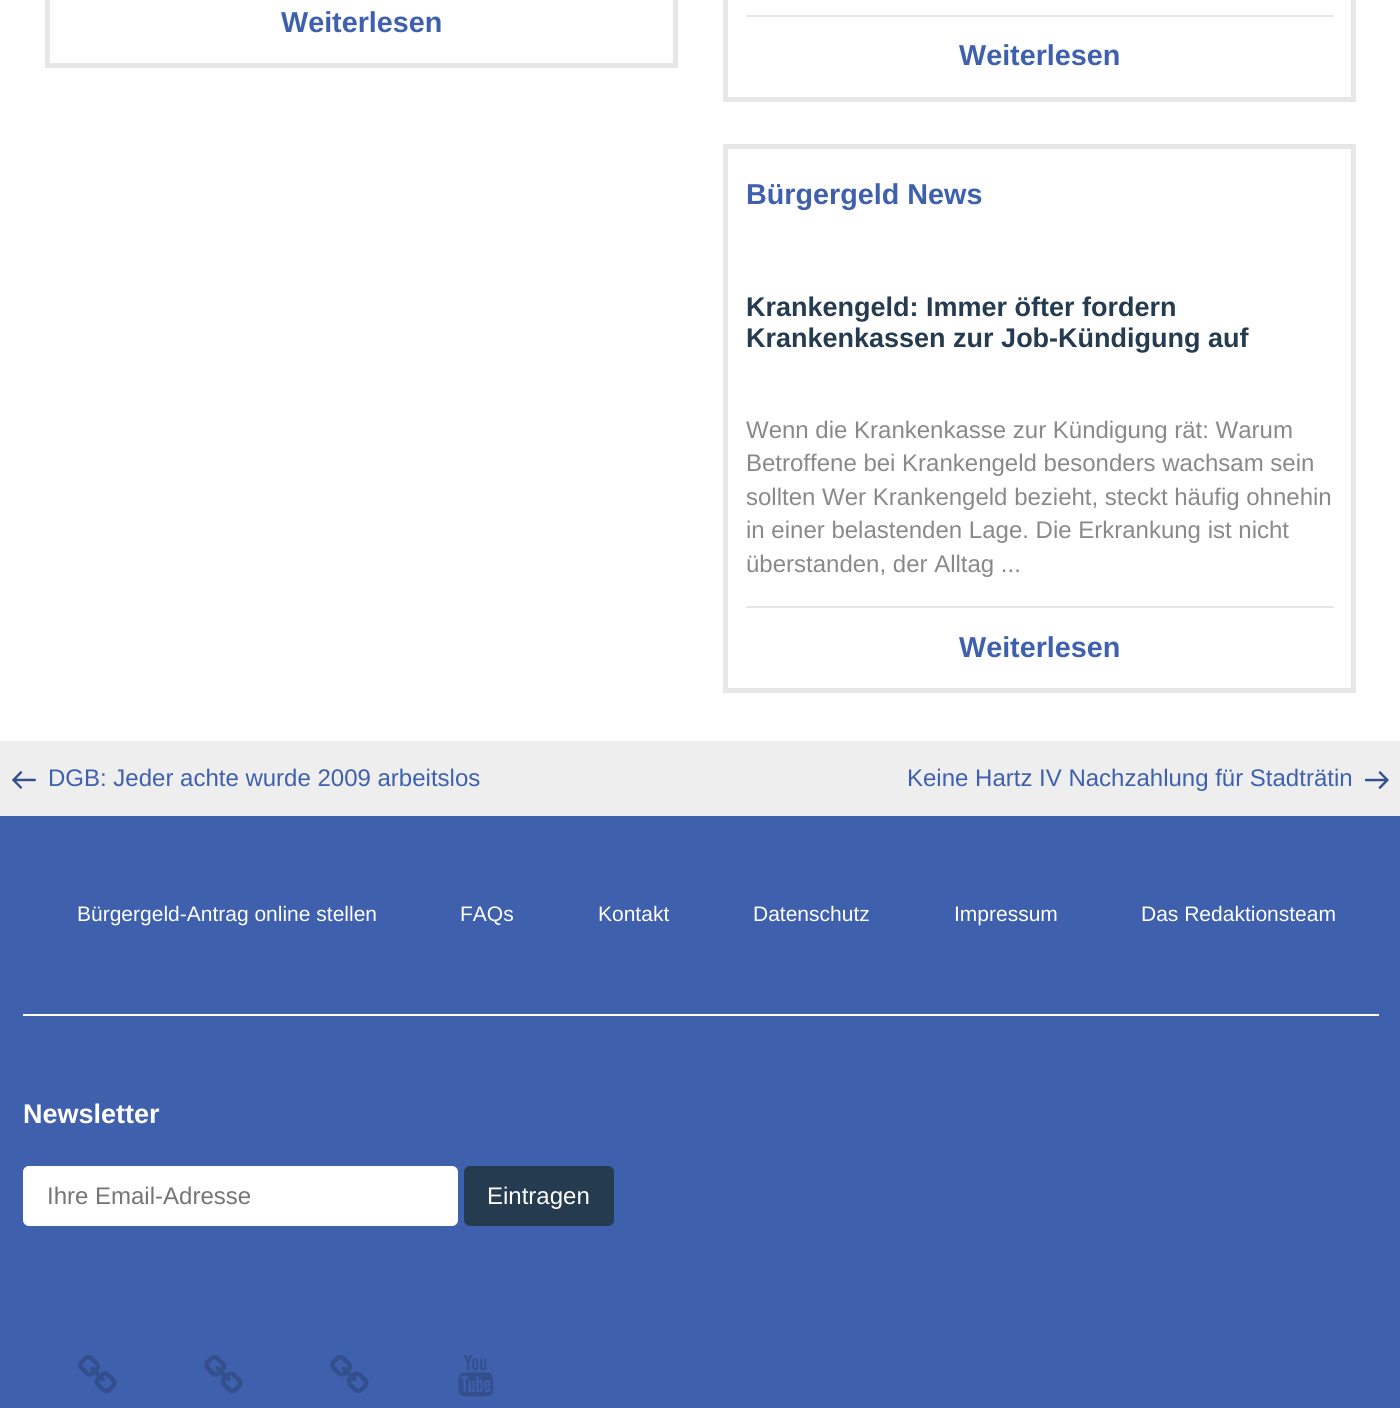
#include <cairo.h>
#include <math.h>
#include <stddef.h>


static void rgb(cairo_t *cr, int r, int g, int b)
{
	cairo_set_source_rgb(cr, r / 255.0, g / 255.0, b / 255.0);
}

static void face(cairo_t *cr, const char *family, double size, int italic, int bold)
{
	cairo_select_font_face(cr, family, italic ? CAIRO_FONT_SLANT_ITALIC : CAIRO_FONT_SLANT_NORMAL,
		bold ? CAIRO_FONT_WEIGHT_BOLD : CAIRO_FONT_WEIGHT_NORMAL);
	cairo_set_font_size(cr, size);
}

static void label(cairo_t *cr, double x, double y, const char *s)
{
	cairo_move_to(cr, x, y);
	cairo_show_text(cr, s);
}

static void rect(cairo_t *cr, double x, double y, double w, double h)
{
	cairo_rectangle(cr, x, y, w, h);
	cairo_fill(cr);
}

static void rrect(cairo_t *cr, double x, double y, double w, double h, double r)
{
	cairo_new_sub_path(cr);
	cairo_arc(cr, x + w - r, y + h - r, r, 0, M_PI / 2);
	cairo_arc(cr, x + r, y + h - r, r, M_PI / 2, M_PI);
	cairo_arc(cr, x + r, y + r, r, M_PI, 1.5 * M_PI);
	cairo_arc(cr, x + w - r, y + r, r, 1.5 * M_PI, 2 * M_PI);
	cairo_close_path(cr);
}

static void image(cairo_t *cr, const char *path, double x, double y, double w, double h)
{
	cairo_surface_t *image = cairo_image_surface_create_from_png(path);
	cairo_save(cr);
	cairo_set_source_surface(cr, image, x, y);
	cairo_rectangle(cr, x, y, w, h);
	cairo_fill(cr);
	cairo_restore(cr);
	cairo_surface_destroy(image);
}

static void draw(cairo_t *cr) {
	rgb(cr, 255, 255, 255);
	cairo_paint(cr);
	cairo_rectangle(cr, 47.5, -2.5, 628, 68);
	rgb(cr, 231, 231, 231);
	cairo_set_line_width(cr, 5);
	cairo_stroke(cr);
	face(cr, "Liberation Sans", 28.75, 0, 1);
	rgb(cr, 62, 96, 173);
	label(cr, 281, 32, "Weiterlesen");
	cairo_rectangle(cr, 725.5, -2.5, 628, 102);
	rgb(cr, 231, 231, 231);
	cairo_stroke(cr);
	rect(cr, 746, 15, 588, 2);
	rgb(cr, 62, 96, 173);
	label(cr, 959, 65, "Weiterlesen");
	cairo_rectangle(cr, 725.5, 146.5, 628, 544);
	rgb(cr, 231, 231, 231);
	cairo_stroke(cr);
	rgb(cr, 62, 96, 173);
	label(cr, 746, 204, "Bürgergeld News");
	face(cr, "Liberation Sans", 27, 0, 1);
	rgb(cr, 37, 59, 80);
	label(cr, 746, 316, "Krankengeld: Immer öfter fordern");
	label(cr, 746, 347, "Krankenkassen zur Job-Kündigung auf");
	face(cr, "Liberation Sans", 24, 0, 0);
	rgb(cr, 137, 137, 137);
	label(cr, 746, 438, "Wenn die Krankenkasse zur Kündigung rät: Warum");
	label(cr, 746, 471, "Betroffene bei Krankengeld besonders wachsam sein");
	label(cr, 746, 505, "sollten Wer Krankengeld bezieht, steckt häufig ohnehin");
	label(cr, 746, 538, "in einer belastenden Lage. Die Erkrankung ist nicht");
	label(cr, 746, 572, "überstanden, der Alltag ...");
	rgb(cr, 231, 231, 231);
	rect(cr, 746, 606, 588, 2);
	face(cr, "Liberation Sans", 28.75, 0, 1);
	rgb(cr, 62, 96, 173);
	label(cr, 959, 657, "Weiterlesen");
	rgb(cr, 238, 238, 238);
	rect(cr, 0, 741, 1400, 75);
	image(cr, "image0.png", 12, 771, 24, 18);
	face(cr, "Liberation Sans", 24, 0, 0);
	rgb(cr, 62, 96, 173);
	label(cr, 48, 786, "DGB: Jeder achte wurde 2009 arbeitslos");
	label(cr, 907, 786, "Keine Hartz IV Nachzahlung für Stadträtin");
	image(cr, "image1.png", 1365, 771, 24, 18);
	rect(cr, 0, 816, 1400, 592);
	rgb(cr, 255, 255, 255);
	rect(cr, 23, 1014, 1356, 2);
	face(cr, "Liberation Sans", 21, 0, 0);
	label(cr, 77, 921, "Bürgergeld-Antrag online stellen");
	label(cr, 460, 921, "FAQs");
	label(cr, 598, 921, "Kontakt");
	label(cr, 753, 921, "Datenschutz");
	label(cr, 954, 921, "Impressum");
	label(cr, 1141, 921, "Das Redaktionsteam");
	face(cr, "Liberation Sans", 27, 0, 1);
	label(cr, 23, 1123, "Newsletter");
	rrect(cr, 23, 1166, 435, 60, 6);
	cairo_fill(cr);
	face(cr, "Liberation Sans", 24, 0, 0);
	rgb(cr, 117, 117, 117);
	label(cr, 47, 1204, "Ihre Email-Adresse");
	rgb(cr, 37, 59, 80);
	rrect(cr, 464, 1166, 150, 60, 6);
	cairo_fill(cr);
	rgb(cr, 255, 255, 255);
	label(cr, 487, 1204, "Eintragen");
	image(cr, "image2.png", 78, 1355, 39, 38);
	image(cr, "image2.png", 204, 1355, 39, 38);
	image(cr, "image2.png", 330, 1355, 39, 38);
	image(cr, "image3.png", 458, 1355, 36, 42);
}

int main(void) {
	cairo_surface_t *surface = cairo_image_surface_create(CAIRO_FORMAT_RGB24, 1400, 1408);
	cairo_t *cr = cairo_create(surface);
	cairo_font_options_t *options = cairo_font_options_create();
	cairo_font_options_set_hint_metrics(options, CAIRO_HINT_METRICS_OFF);
	cairo_font_options_set_hint_style(options, CAIRO_HINT_STYLE_NONE);
	cairo_set_font_options(cr, options);
	cairo_set_miter_limit(cr, 4);
	draw(cr);
	cairo_surface_write_to_png(surface, "render.png");
	cairo_font_options_destroy(options);
	cairo_destroy(cr);
	cairo_surface_destroy(surface);
	return 0;
}
